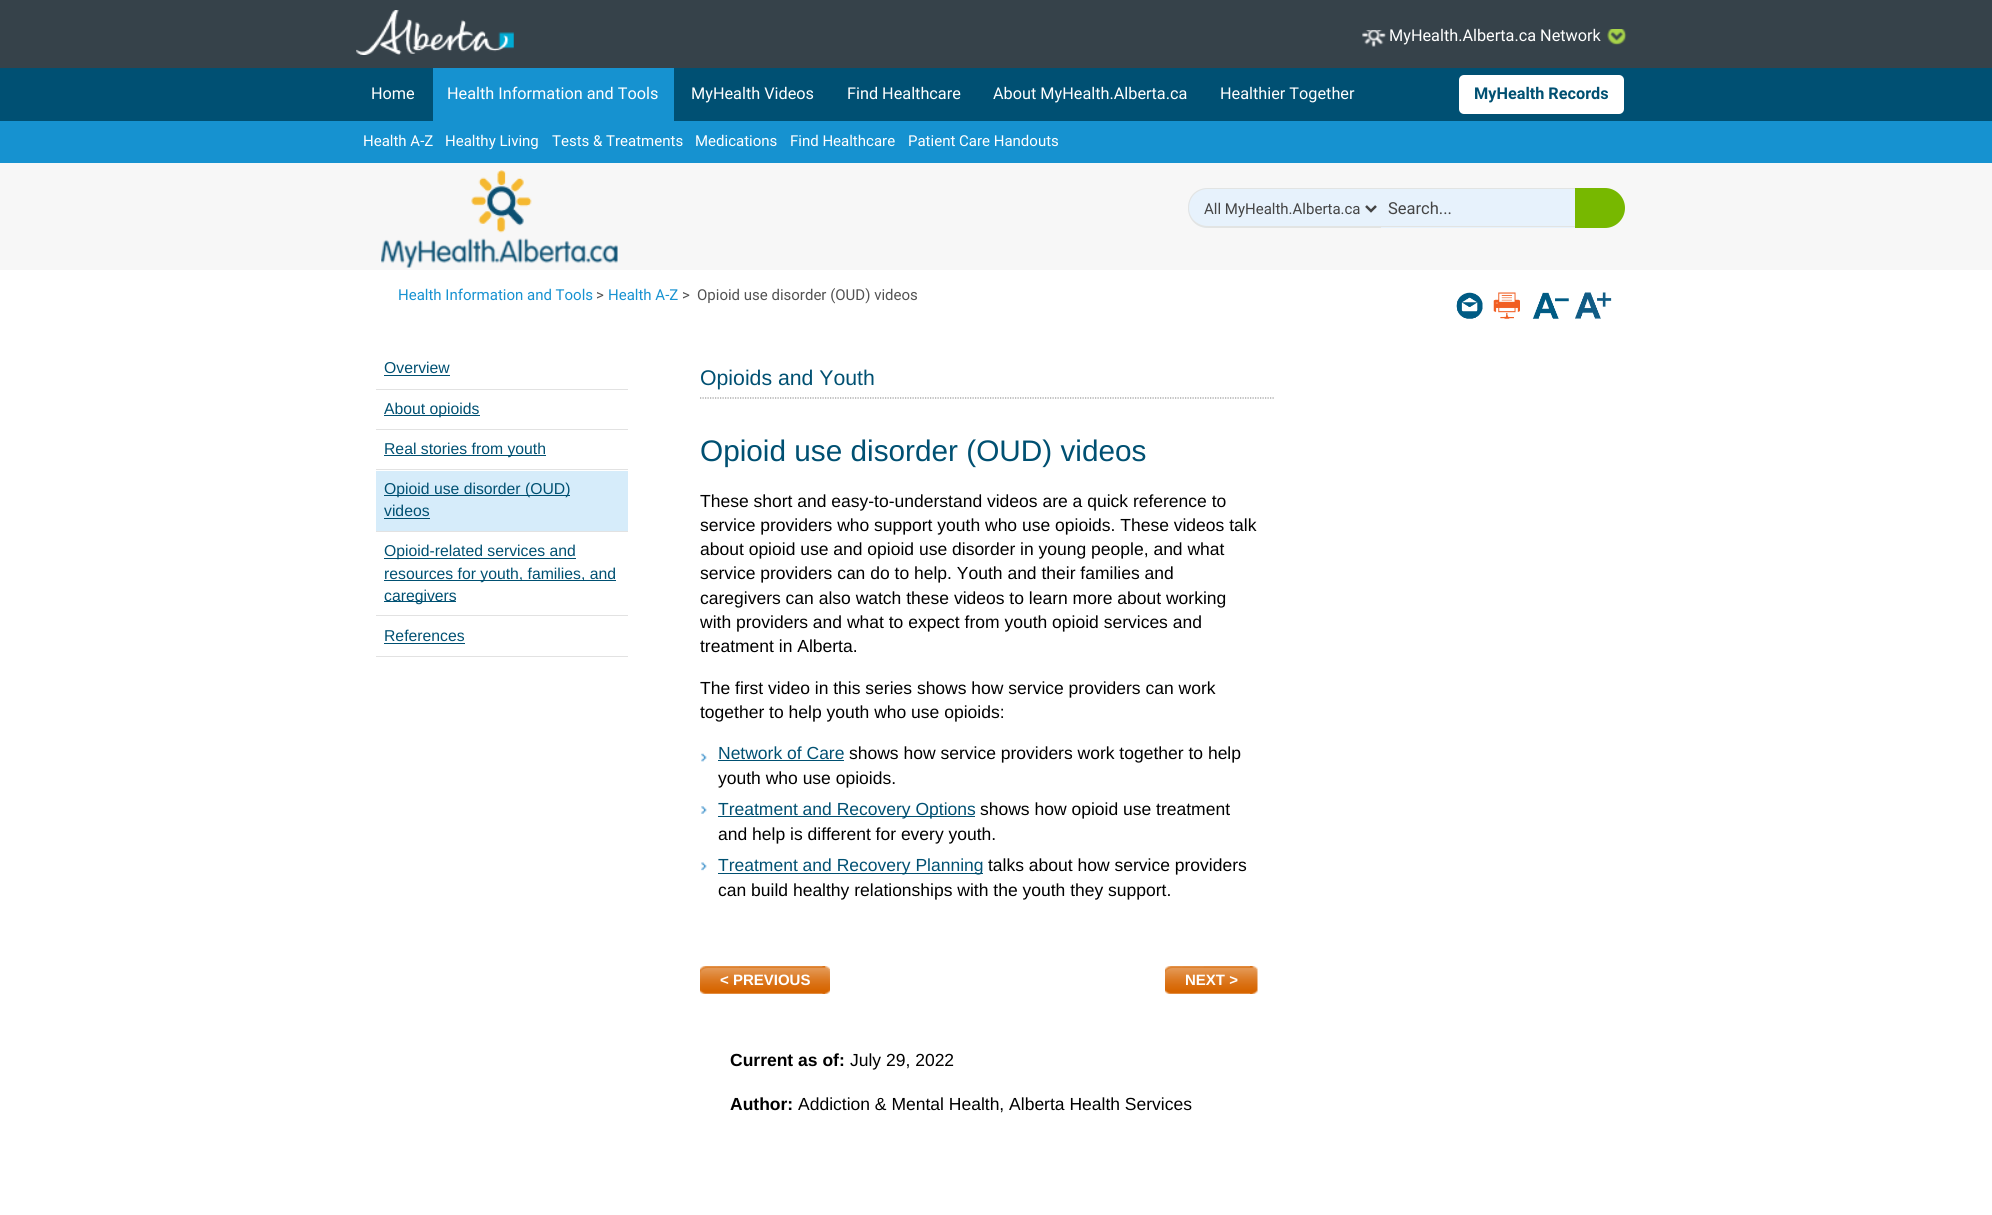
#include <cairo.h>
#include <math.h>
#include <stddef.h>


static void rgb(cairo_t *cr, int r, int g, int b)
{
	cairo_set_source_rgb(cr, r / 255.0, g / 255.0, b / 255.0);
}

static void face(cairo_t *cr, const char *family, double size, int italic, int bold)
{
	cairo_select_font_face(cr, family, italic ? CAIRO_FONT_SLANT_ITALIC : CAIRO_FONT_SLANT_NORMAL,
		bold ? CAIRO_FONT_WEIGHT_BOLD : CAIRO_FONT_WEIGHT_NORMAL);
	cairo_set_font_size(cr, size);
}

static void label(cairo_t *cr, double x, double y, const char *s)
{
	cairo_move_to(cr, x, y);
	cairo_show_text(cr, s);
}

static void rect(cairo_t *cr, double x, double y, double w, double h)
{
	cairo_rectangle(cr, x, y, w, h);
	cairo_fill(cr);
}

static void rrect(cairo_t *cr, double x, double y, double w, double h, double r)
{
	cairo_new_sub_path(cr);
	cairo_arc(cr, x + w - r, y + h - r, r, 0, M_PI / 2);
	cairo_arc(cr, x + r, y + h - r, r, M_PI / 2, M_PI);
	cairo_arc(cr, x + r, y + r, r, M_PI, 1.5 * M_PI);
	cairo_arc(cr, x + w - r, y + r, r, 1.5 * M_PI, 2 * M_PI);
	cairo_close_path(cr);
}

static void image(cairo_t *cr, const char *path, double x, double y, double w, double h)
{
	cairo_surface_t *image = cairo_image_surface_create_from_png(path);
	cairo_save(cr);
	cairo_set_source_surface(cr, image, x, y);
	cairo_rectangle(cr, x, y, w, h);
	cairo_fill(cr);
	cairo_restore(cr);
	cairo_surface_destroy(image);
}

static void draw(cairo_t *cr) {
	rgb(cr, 247, 247, 247);
	cairo_paint(cr);
	rgb(cr, 0, 80, 115);
	rect(cr, 0, 68, 1992, 53);
	rgb(cr, 54, 66, 74);
	rect(cr, 0, 0, 1992, 68);
	image(cr, "image0.png", 356, 10, 158, 45);
	image(cr, "image1.png", 1362, 30, 24, 17);
	face(cr, "Roboto", 16.25, 0, 0);
	rgb(cr, 255, 255, 255);
	label(cr, 1389, 41, "MyHealth.Alberta.ca Network");
	image(cr, "image2.png", 1607, 29, 20, 16);
	label(cr, 371, 99, "Home");
	rgb(cr, 22, 146, 208);
	rect(cr, 433, 68, 241, 53);
	rgb(cr, 255, 255, 255);
	label(cr, 447, 99, "Health Information and Tools");
	label(cr, 691, 99, "MyHealth Videos");
	label(cr, 847, 99, "Find Healthcare");
	label(cr, 993, 99, "About MyHealth.Alberta.ca");
	label(cr, 1220, 99, "Healthier Together");
	rrect(cr, 1459, 75, 165, 39, 5);
	cairo_fill(cr);
	face(cr, "Roboto", 16.25, 0, 1);
	rgb(cr, 0, 80, 114);
	label(cr, 1474, 99, "MyHealth Records");
	rgb(cr, 22, 146, 208);
	rect(cr, 0, 121, 1992, 42);
	face(cr, "Roboto", 15, 0, 0);
	rgb(cr, 255, 255, 255);
	label(cr, 363, 146, "Health A-Z");
	label(cr, 445, 146, "Healthy Living");
	label(cr, 552, 146, "Tests & Treatments");
	label(cr, 695, 146, "Medications");
	label(cr, 790, 146, "Find Healthcare");
	label(cr, 908, 146, "Patient Care Handouts");
	image(cr, "image3.png", 381, 170, 237, 98);
	rgb(cr, 231, 242, 252);
	cairo_new_path(cr);
	cairo_move_to(cr, 1208, 188);
	cairo_line_to(cr, 1381, 188);
	cairo_line_to(cr, 1381, 228);
	cairo_line_to(cr, 1208, 228);
	cairo_curve_to(cr, 1197, 228, 1188, 219, 1188, 208);
	cairo_curve_to(cr, 1188, 197, 1197, 188, 1208, 188);
	cairo_close_path(cr);
	cairo_fill(cr);
	rgb(cr, 226, 228, 227);
	cairo_set_fill_rule(cr, CAIRO_FILL_RULE_EVEN_ODD);
	cairo_new_path(cr);
	cairo_move_to(cr, 1208, 188);
	cairo_line_to(cr, 1381, 188);
	cairo_line_to(cr, 1381, 228);
	cairo_line_to(cr, 1208, 228);
	cairo_curve_to(cr, 1196, 228, 1188, 219, 1188, 208);
	cairo_curve_to(cr, 1188, 196, 1196, 188, 1208, 188);
	cairo_close_path(cr);
	cairo_move_to(cr, 1208, 189);
	cairo_line_to(cr, 1381, 189);
	cairo_line_to(cr, 1381, 226);
	cairo_line_to(cr, 1208, 226);
	cairo_curve_to(cr, 1197, 226, 1189, 218, 1189, 208);
	cairo_curve_to(cr, 1189, 197, 1197, 189, 1208, 189);
	cairo_close_path(cr);
	cairo_fill(cr);
	cairo_new_path(cr);
	cairo_move_to(cr, 1366, 206);
	cairo_line_to(cr, 1371, 211);
	cairo_line_to(cr, 1376, 206);
	rgb(cr, 68, 68, 68);
	cairo_set_line_width(cr, 2.5);
	cairo_stroke(cr);
	label(cr, 1204, 214, "All MyHealth.Alberta.ca");
	rgb(cr, 231, 242, 252);
	rect(cr, 1381, 189, 194, 39);
	rgb(cr, 226, 228, 227);
	rect(cr, 1381, 188, 194, 1);
	rect(cr, 1381, 226, 194, 1);
	face(cr, "Roboto", 16.5, 0, 0);
	rgb(cr, 68, 68, 68);
	label(cr, 1388, 214, "Search...");
	rgb(cr, 119, 184, 0);
	cairo_new_path(cr);
	cairo_move_to(cr, 1575, 188);
	cairo_line_to(cr, 1605, 188);
	cairo_curve_to(cr, 1616, 188, 1625, 197, 1625, 208);
	cairo_curve_to(cr, 1625, 219, 1616, 228, 1605, 228);
	cairo_line_to(cr, 1575, 228);
	cairo_close_path(cr);
	cairo_fill(cr);
	rgb(cr, 255, 255, 255);
	rect(cr, 0, 270, 1992, 945);
	face(cr, "Roboto", 15, 0, 0);
	rgb(cr, 22, 146, 209);
	label(cr, 398, 300, "Health Information and Tools");
	rgb(cr, 82, 82, 82);
	label(cr, 596, 300, ">");
	rgb(cr, 22, 146, 209);
	label(cr, 608, 300, "Health A-Z");
	rgb(cr, 82, 82, 82);
	label(cr, 682, 300, ">");
	label(cr, 697, 300, "Opioid use disorder (OUD) videos");
	image(cr, "image4.png", 1456, 292, 27, 27);
	image(cr, "image5.png", 1493, 292, 27, 27);
	image(cr, "image6.png", 1532, 292, 37, 27);
	image(cr, "image7.png", 1575, 292, 37, 27);
	rgb(cr, 226, 226, 226);
	rect(cr, 376, 389, 252, 1);
	face(cr, "Liberation Sans", 15.75, 0, 0);
	rgb(cr, 0, 80, 114);
	label(cr, 384, 373, "Overview");
	rect(cr, 384, 375, 66, 1);
	rgb(cr, 226, 226, 226);
	rect(cr, 376, 429, 252, 1);
	rgb(cr, 0, 80, 114);
	rect(cr, 384, 415, 96, 1);
	label(cr, 384, 414, "About opioids");
	rgb(cr, 226, 226, 226);
	rect(cr, 376, 469, 252, 1);
	rgb(cr, 0, 80, 114);
	rect(cr, 384, 455, 162, 1);
	label(cr, 384, 454, "Real stories from youth");
	rgb(cr, 226, 226, 226);
	rect(cr, 376, 531, 252, 1);
	rgb(cr, 214, 236, 250);
	rect(cr, 376, 471, 252, 60);
	rgb(cr, 0, 80, 114);
	rect(cr, 384, 495, 186, 1);
	label(cr, 384, 494, "Opioid use disorder (OUD)");
	label(cr, 384, 516, "videos");
	rect(cr, 384, 518, 46, 1);
	rgb(cr, 226, 226, 226);
	rect(cr, 376, 615, 252, 1);
	rgb(cr, 0, 80, 114);
	rect(cr, 384, 558, 192, 1);
	label(cr, 384, 556, "Opioid-related services and");
	rect(cr, 384, 580, 232, 1);
	label(cr, 384, 579, "resources for youth, families, and");
	rect(cr, 384, 601, 72, 1);
	label(cr, 384, 601, "caregivers");
	rgb(cr, 226, 226, 226);
	rect(cr, 376, 656, 252, 1);
	rgb(cr, 0, 80, 114);
	label(cr, 384, 641, "References");
	rect(cr, 384, 643, 81, 1);
	cairo_new_path(cr);
	cairo_move_to(cr, 700, 398);
	cairo_line_to(cr, 1275, 398);
	rgb(cr, 153, 153, 153);
	cairo_set_line_width(cr, 1.2);
	cairo_set_dash(cr, (double[]){1.25, 1.25}, 2, 0);
	cairo_stroke(cr);
	face(cr, "Liberation Sans", 21.25, 0, 0);
	rgb(cr, 0, 80, 114);
	label(cr, 700, 385, "Opioids and Youth");
	face(cr, "Liberation Sans", 29.75, 0, 0);
	label(cr, 700, 461, "Opioid use disorder (OUD) videos");
	face(cr, "Liberation Sans", 17.5, 0, 0);
	rgb(cr, 0, 0, 0);
	label(cr, 700, 507, "These short and easy-to-understand videos are a quick reference to");
	label(cr, 700, 531, "service providers who support youth who use opioids. These videos talk");
	label(cr, 700, 555, "about opioid use and opioid use disorder in young people, and what");
	label(cr, 700, 579, "service providers can do to help. Youth and their families and");
	label(cr, 700, 604, "caregivers can also watch these videos to learn more about working");
	label(cr, 700, 628, "with providers and what to expect from youth opioid services and");
	label(cr, 700, 652, "treatment in Alberta.");
	label(cr, 700, 694, "The first video in this series shows how service providers can work");
	label(cr, 700, 718, "together to help youth who use opioids:");
	image(cr, "image8.png", 701, 753, 6, 9);
	rgb(cr, 0, 80, 114);
	label(cr, 718, 759, "Network of Care");
	rect(cr, 718, 760, 126, 1);
	rgb(cr, 0, 0, 0);
	label(cr, 849, 759, "shows how service providers work together to help");
	label(cr, 718, 784, "youth who use opioids.");
	image(cr, "image9.png", 701, 806, 6, 8);
	rgb(cr, 0, 80, 114);
	rect(cr, 718, 816, 257, 1);
	label(cr, 718, 815, "Treatment and Recovery Options");
	rgb(cr, 0, 0, 0);
	label(cr, 980, 815, "shows how opioid use treatment");
	label(cr, 718, 840, "and help is different for every youth.");
	image(cr, "image10.png", 701, 862, 6, 9);
	rgb(cr, 0, 80, 114);
	rect(cr, 718, 873, 265, 1);
	label(cr, 718, 871, "Treatment and Recovery Planning");
	rgb(cr, 0, 0, 0);
	label(cr, 988, 871, "talks about how service providers");
	label(cr, 718, 896, "can build healthy relationships with the youth they support.");
	image(cr, "image11.png", 822, 966, 8, 28);
	image(cr, "image12.png", 700, 966, 125, 28);
	face(cr, "Liberation Sans", 15, 0, 1);
	rgb(cr, 255, 255, 255);
	label(cr, 720, 985, "< PREVIOUS");
	image(cr, "image13.png", 1250, 966, 8, 28);
	image(cr, "image14.png", 1165, 966, 88, 28);
	label(cr, 1185, 985, "NEXT >");
	face(cr, "Liberation Sans", 17.5, 0, 1);
	rgb(cr, 0, 0, 0);
	label(cr, 730, 1066, "Current as of:");
	face(cr, "Liberation Sans", 17.5, 0, 0);
	label(cr, 850, 1066, "July 29, 2022");
	face(cr, "Liberation Sans", 17.5, 0, 1);
	label(cr, 730, 1110, "Author:");
	face(cr, "Liberation Sans", 17.5, 0, 0);
	label(cr, 798, 1110, "Addiction & Mental Health, Alberta Health Services");
}

int main(void) {
	cairo_surface_t *surface = cairo_image_surface_create(CAIRO_FORMAT_RGB24, 1992, 1215);
	cairo_t *cr = cairo_create(surface);
	cairo_font_options_t *options = cairo_font_options_create();
	cairo_font_options_set_hint_metrics(options, CAIRO_HINT_METRICS_OFF);
	cairo_font_options_set_hint_style(options, CAIRO_HINT_STYLE_NONE);
	cairo_set_font_options(cr, options);
	cairo_set_miter_limit(cr, 4);
	draw(cr);
	cairo_surface_write_to_png(surface, "render.png");
	cairo_font_options_destroy(options);
	cairo_destroy(cr);
	cairo_surface_destroy(surface);
	return 0;
}
